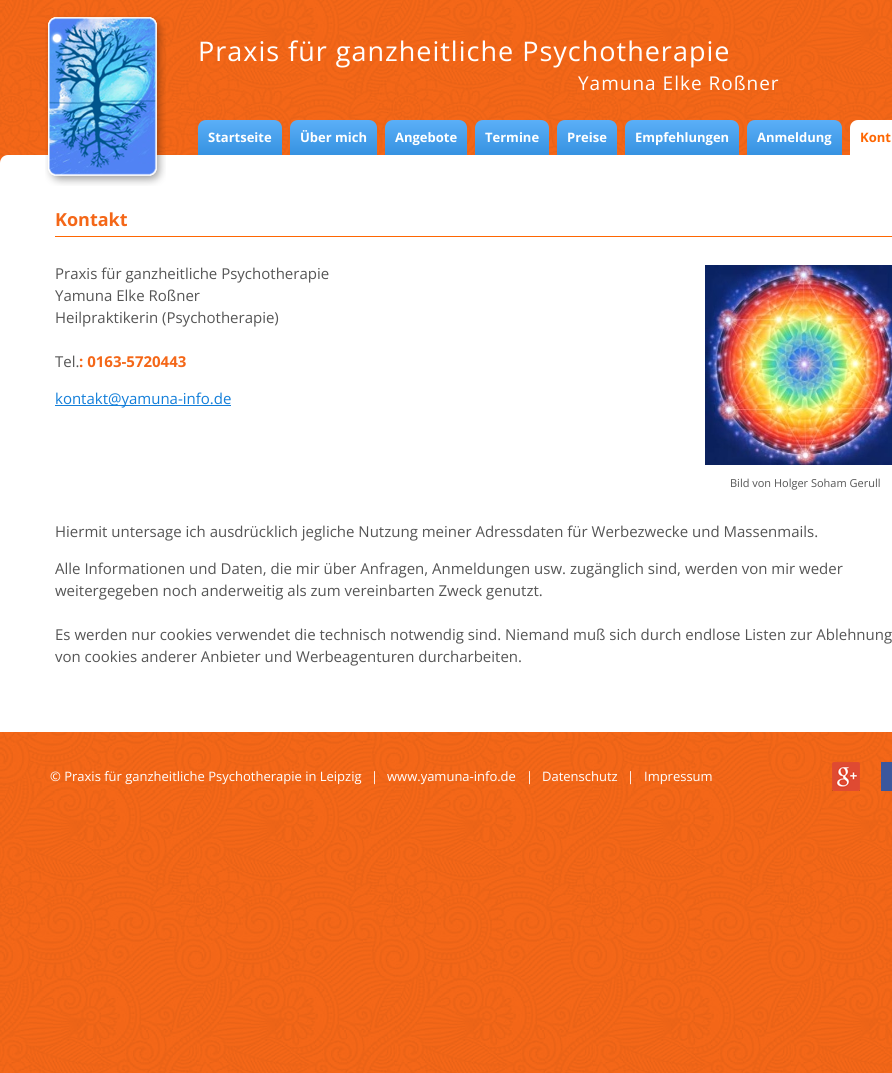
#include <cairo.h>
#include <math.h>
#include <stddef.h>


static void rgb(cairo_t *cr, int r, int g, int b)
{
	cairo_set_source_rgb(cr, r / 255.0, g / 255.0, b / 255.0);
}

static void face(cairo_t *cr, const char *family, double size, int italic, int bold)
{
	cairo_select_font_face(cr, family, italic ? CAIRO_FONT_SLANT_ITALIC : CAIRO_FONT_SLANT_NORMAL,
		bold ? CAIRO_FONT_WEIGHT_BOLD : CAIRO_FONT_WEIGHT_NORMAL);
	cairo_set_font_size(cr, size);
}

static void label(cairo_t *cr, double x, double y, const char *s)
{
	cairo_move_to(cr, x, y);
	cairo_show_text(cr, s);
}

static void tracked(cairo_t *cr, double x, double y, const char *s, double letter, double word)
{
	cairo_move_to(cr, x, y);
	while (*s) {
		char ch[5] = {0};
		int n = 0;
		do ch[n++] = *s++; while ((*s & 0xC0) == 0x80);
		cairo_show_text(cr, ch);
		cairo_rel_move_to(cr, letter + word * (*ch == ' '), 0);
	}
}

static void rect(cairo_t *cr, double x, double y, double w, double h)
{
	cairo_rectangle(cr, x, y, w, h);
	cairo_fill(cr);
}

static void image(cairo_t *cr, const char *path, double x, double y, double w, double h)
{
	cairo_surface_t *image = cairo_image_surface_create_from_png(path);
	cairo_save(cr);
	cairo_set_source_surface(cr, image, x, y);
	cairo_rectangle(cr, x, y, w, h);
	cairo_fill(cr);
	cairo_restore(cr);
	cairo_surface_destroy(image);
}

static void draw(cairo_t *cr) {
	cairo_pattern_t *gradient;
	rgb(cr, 255, 255, 255);
	cairo_paint(cr);
	image(cr, "image0.png", 0, 0, 892, 1073);
	rgb(cr, 255, 255, 255);
	cairo_new_path(cr);
	cairo_move_to(cr, 8, 155);
	cairo_line_to(cr, 892, 155);
	cairo_curve_to(cr, 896.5, 155, 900, 158.5, 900, 163);
	cairo_line_to(cr, 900, 732);
	cairo_line_to(cr, 0, 732);
	cairo_line_to(cr, 0, 163);
	cairo_curve_to(cr, 0, 158.5, 3.5, 155, 8, 155);
	cairo_close_path(cr);
	cairo_fill(cr);
	image(cr, "image1.png", 45, 15, 121, 171);
	face(cr, "Open Sans", 27, 0, 0);
	tracked(cr, 198, 61, "Praxis für ganzheitliche Psychotherapie", 1, 0);
	face(cr, "Open Sans", 19, 0, 0);
	tracked(cr, 578, 90, "Yamuna Elke Roßner", 1, 0);
	gradient = cairo_pattern_create_linear(240, 120, 240, 155);
	cairo_pattern_add_color_stop_rgba(gradient, 0, 0.357, 0.686, 0.969, 1);
	cairo_pattern_add_color_stop_rgba(gradient, 1, 0.212, 0.573, 0.882, 1);
	cairo_set_source(cr, gradient);
	cairo_pattern_destroy(gradient);
	cairo_new_path(cr);
	cairo_move_to(cr, 206, 120);
	cairo_line_to(cr, 274, 120);
	cairo_curve_to(cr, 278.5, 120, 282, 123.5, 282, 128);
	cairo_line_to(cr, 282, 155);
	cairo_line_to(cr, 198, 155);
	cairo_line_to(cr, 198, 128);
	cairo_curve_to(cr, 198, 123.5, 201.5, 120, 206, 120);
	cairo_close_path(cr);
	cairo_fill(cr);
	face(cr, "Open Sans", 13, 0, 1);
	rgb(cr, 255, 255, 255);
	label(cr, 208, 142, "Startseite");
	gradient = cairo_pattern_create_linear(334, 120, 334, 155);
	cairo_pattern_add_color_stop_rgba(gradient, 0, 0.357, 0.686, 0.969, 1);
	cairo_pattern_add_color_stop_rgba(gradient, 1, 0.212, 0.573, 0.882, 1);
	cairo_set_source(cr, gradient);
	cairo_pattern_destroy(gradient);
	cairo_new_path(cr);
	cairo_move_to(cr, 298, 120);
	cairo_line_to(cr, 369, 120);
	cairo_curve_to(cr, 373.5, 120, 377, 123.5, 377, 128);
	cairo_line_to(cr, 377, 155);
	cairo_line_to(cr, 290, 155);
	cairo_line_to(cr, 290, 128);
	cairo_curve_to(cr, 290, 123.5, 293.5, 120, 298, 120);
	cairo_close_path(cr);
	cairo_fill(cr);
	rgb(cr, 255, 255, 255);
	label(cr, 300, 142, "Über mich");
	gradient = cairo_pattern_create_linear(426, 120, 426, 155);
	cairo_pattern_add_color_stop_rgba(gradient, 0, 0.357, 0.686, 0.969, 1);
	cairo_pattern_add_color_stop_rgba(gradient, 1, 0.212, 0.573, 0.882, 1);
	cairo_set_source(cr, gradient);
	cairo_pattern_destroy(gradient);
	cairo_new_path(cr);
	cairo_move_to(cr, 393, 120);
	cairo_line_to(cr, 459, 120);
	cairo_curve_to(cr, 463.5, 120, 467, 123.5, 467, 128);
	cairo_line_to(cr, 467, 155);
	cairo_line_to(cr, 385, 155);
	cairo_line_to(cr, 385, 128);
	cairo_curve_to(cr, 385, 123.5, 388.5, 120, 393, 120);
	cairo_close_path(cr);
	cairo_fill(cr);
	rgb(cr, 255, 255, 255);
	label(cr, 395, 142, "Angebote");
	gradient = cairo_pattern_create_linear(512, 120, 512, 155);
	cairo_pattern_add_color_stop_rgba(gradient, 0, 0.357, 0.686, 0.969, 1);
	cairo_pattern_add_color_stop_rgba(gradient, 1, 0.212, 0.573, 0.882, 1);
	cairo_set_source(cr, gradient);
	cairo_pattern_destroy(gradient);
	cairo_new_path(cr);
	cairo_move_to(cr, 483, 120);
	cairo_line_to(cr, 541, 120);
	cairo_curve_to(cr, 545.5, 120, 549, 123.5, 549, 128);
	cairo_line_to(cr, 549, 155);
	cairo_line_to(cr, 475, 155);
	cairo_line_to(cr, 475, 128);
	cairo_curve_to(cr, 475, 123.5, 478.5, 120, 483, 120);
	cairo_close_path(cr);
	cairo_fill(cr);
	rgb(cr, 255, 255, 255);
	label(cr, 485, 142, "Termine");
	gradient = cairo_pattern_create_linear(587, 120, 587, 155);
	cairo_pattern_add_color_stop_rgba(gradient, 0, 0.357, 0.686, 0.969, 1);
	cairo_pattern_add_color_stop_rgba(gradient, 1, 0.212, 0.573, 0.882, 1);
	cairo_set_source(cr, gradient);
	cairo_pattern_destroy(gradient);
	cairo_new_path(cr);
	cairo_move_to(cr, 565, 120);
	cairo_line_to(cr, 609, 120);
	cairo_curve_to(cr, 613.5, 120, 617, 123.5, 617, 128);
	cairo_line_to(cr, 617, 155);
	cairo_line_to(cr, 557, 155);
	cairo_line_to(cr, 557, 128);
	cairo_curve_to(cr, 557, 123.5, 560.5, 120, 565, 120);
	cairo_close_path(cr);
	cairo_fill(cr);
	rgb(cr, 255, 255, 255);
	label(cr, 567, 142, "Preise");
	gradient = cairo_pattern_create_linear(682, 120, 682, 155);
	cairo_pattern_add_color_stop_rgba(gradient, 0, 0.357, 0.686, 0.969, 1);
	cairo_pattern_add_color_stop_rgba(gradient, 1, 0.212, 0.573, 0.882, 1);
	cairo_set_source(cr, gradient);
	cairo_pattern_destroy(gradient);
	cairo_new_path(cr);
	cairo_move_to(cr, 633, 120);
	cairo_line_to(cr, 731, 120);
	cairo_curve_to(cr, 735.5, 120, 739, 123.5, 739, 128);
	cairo_line_to(cr, 739, 155);
	cairo_line_to(cr, 625, 155);
	cairo_line_to(cr, 625, 128);
	cairo_curve_to(cr, 625, 123.5, 628.5, 120, 633, 120);
	cairo_close_path(cr);
	cairo_fill(cr);
	rgb(cr, 255, 255, 255);
	label(cr, 635, 142, "Empfehlungen");
	gradient = cairo_pattern_create_linear(795, 120, 795, 155);
	cairo_pattern_add_color_stop_rgba(gradient, 0, 0.357, 0.686, 0.969, 1);
	cairo_pattern_add_color_stop_rgba(gradient, 1, 0.212, 0.573, 0.882, 1);
	cairo_set_source(cr, gradient);
	cairo_pattern_destroy(gradient);
	cairo_new_path(cr);
	cairo_move_to(cr, 755, 120);
	cairo_line_to(cr, 834, 120);
	cairo_curve_to(cr, 838.5, 120, 842, 123.5, 842, 128);
	cairo_line_to(cr, 842, 155);
	cairo_line_to(cr, 747, 155);
	cairo_line_to(cr, 747, 128);
	cairo_curve_to(cr, 747, 123.5, 750.5, 120, 755, 120);
	cairo_close_path(cr);
	cairo_fill(cr);
	rgb(cr, 255, 255, 255);
	label(cr, 757, 142, "Anmeldung");
	cairo_new_path(cr);
	cairo_move_to(cr, 858, 120);
	cairo_line_to(cr, 892, 120);
	cairo_curve_to(cr, 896.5, 120, 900, 123.5, 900, 128);
	cairo_line_to(cr, 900, 155);
	cairo_line_to(cr, 850, 155);
	cairo_line_to(cr, 850, 128);
	cairo_curve_to(cr, 850, 123.5, 853.5, 120, 858, 120);
	cairo_close_path(cr);
	cairo_fill(cr);
	rgb(cr, 254, 102, 1);
	label(cr, 860, 142, "Kont");
	rect(cr, 55, 236, 837, 1);
	face(cr, "Open Sans", 18, 0, 1);
	rgb(cr, 244, 103, 24);
	label(cr, 55, 226, "Kontakt");
	face(cr, "Open Sans", 15, 0, 0);
	rgb(cr, 85, 85, 85);
	label(cr, 55, 279, "Praxis für ganzheitliche Psychotherapie");
	label(cr, 55, 301, "Yamuna Elke Roßner");
	label(cr, 55, 323, "Heilpraktikerin (Psychotherapie)");
	label(cr, 55, 367, "Tel.");
	face(cr, "Open Sans", 15, 0, 1);
	rgb(cr, 244, 103, 24);
	label(cr, 79, 367, ": 0163-5720443");
	rgb(cr, 18, 126, 217);
	rect(cr, 55, 405, 176, 1);
	face(cr, "Open Sans", 15, 0, 0);
	label(cr, 55, 404, "kontakt@yamuna-info.de");
	image(cr, "image2.png", 705, 265, 187, 200);
	face(cr, "Open Sans", 11, 0, 0);
	rgb(cr, 85, 85, 85);
	label(cr, 730, 487, "Bild von Holger Soham Gerull");
	face(cr, "Open Sans", 15, 0, 0);
	label(cr, 55, 537, "Hiermit untersage ich ausdrücklich jegliche Nutzung meiner Adressdaten für Werbezwecke und Massenmails.");
	label(cr, 55, 574, "Alle Informationen und Daten, die mir über Anfragen, Anmeldungen usw. zugänglich sind, werden von mir weder");
	label(cr, 55, 596, "weitergegeben noch anderweitig als zum vereinbarten Zweck genutzt.");
	label(cr, 55, 640, "Es werden nur cookies verwendet die technisch notwendig sind. Niemand muß sich durch endlose Listen zur Ablehnung");
	label(cr, 55, 662, "von cookies anderer Anbieter und Werbeagenturen durcharbeiten.");
	face(cr, "Open Sans", 13, 0, 0);
	rgb(cr, 255, 255, 255);
	label(cr, 50, 781, "© Praxis für ganzheitliche Psychotherapie in Leipzig");
	label(cr, 371, 781, "|");
	label(cr, 387, 781, "www.yamuna-info.de");
	label(cr, 526, 781, "|");
	label(cr, 542, 781, "Datenschutz");
	label(cr, 627, 781, "|");
	label(cr, 644, 781, "Impressum");
	image(cr, "image3.png", 832, 762, 28, 29);
	rgb(cr, 59, 87, 157);
	rect(cr, 881, 762, 11, 29);
}

int main(void) {
	cairo_surface_t *surface = cairo_image_surface_create(CAIRO_FORMAT_RGB24, 892, 1073);
	cairo_t *cr = cairo_create(surface);
	cairo_font_options_t *options = cairo_font_options_create();
	cairo_font_options_set_hint_metrics(options, CAIRO_HINT_METRICS_OFF);
	cairo_font_options_set_hint_style(options, CAIRO_HINT_STYLE_NONE);
	cairo_set_font_options(cr, options);
	cairo_set_miter_limit(cr, 4);
	draw(cr);
	cairo_surface_write_to_png(surface, "render.png");
	cairo_font_options_destroy(options);
	cairo_destroy(cr);
	cairo_surface_destroy(surface);
	return 0;
}
